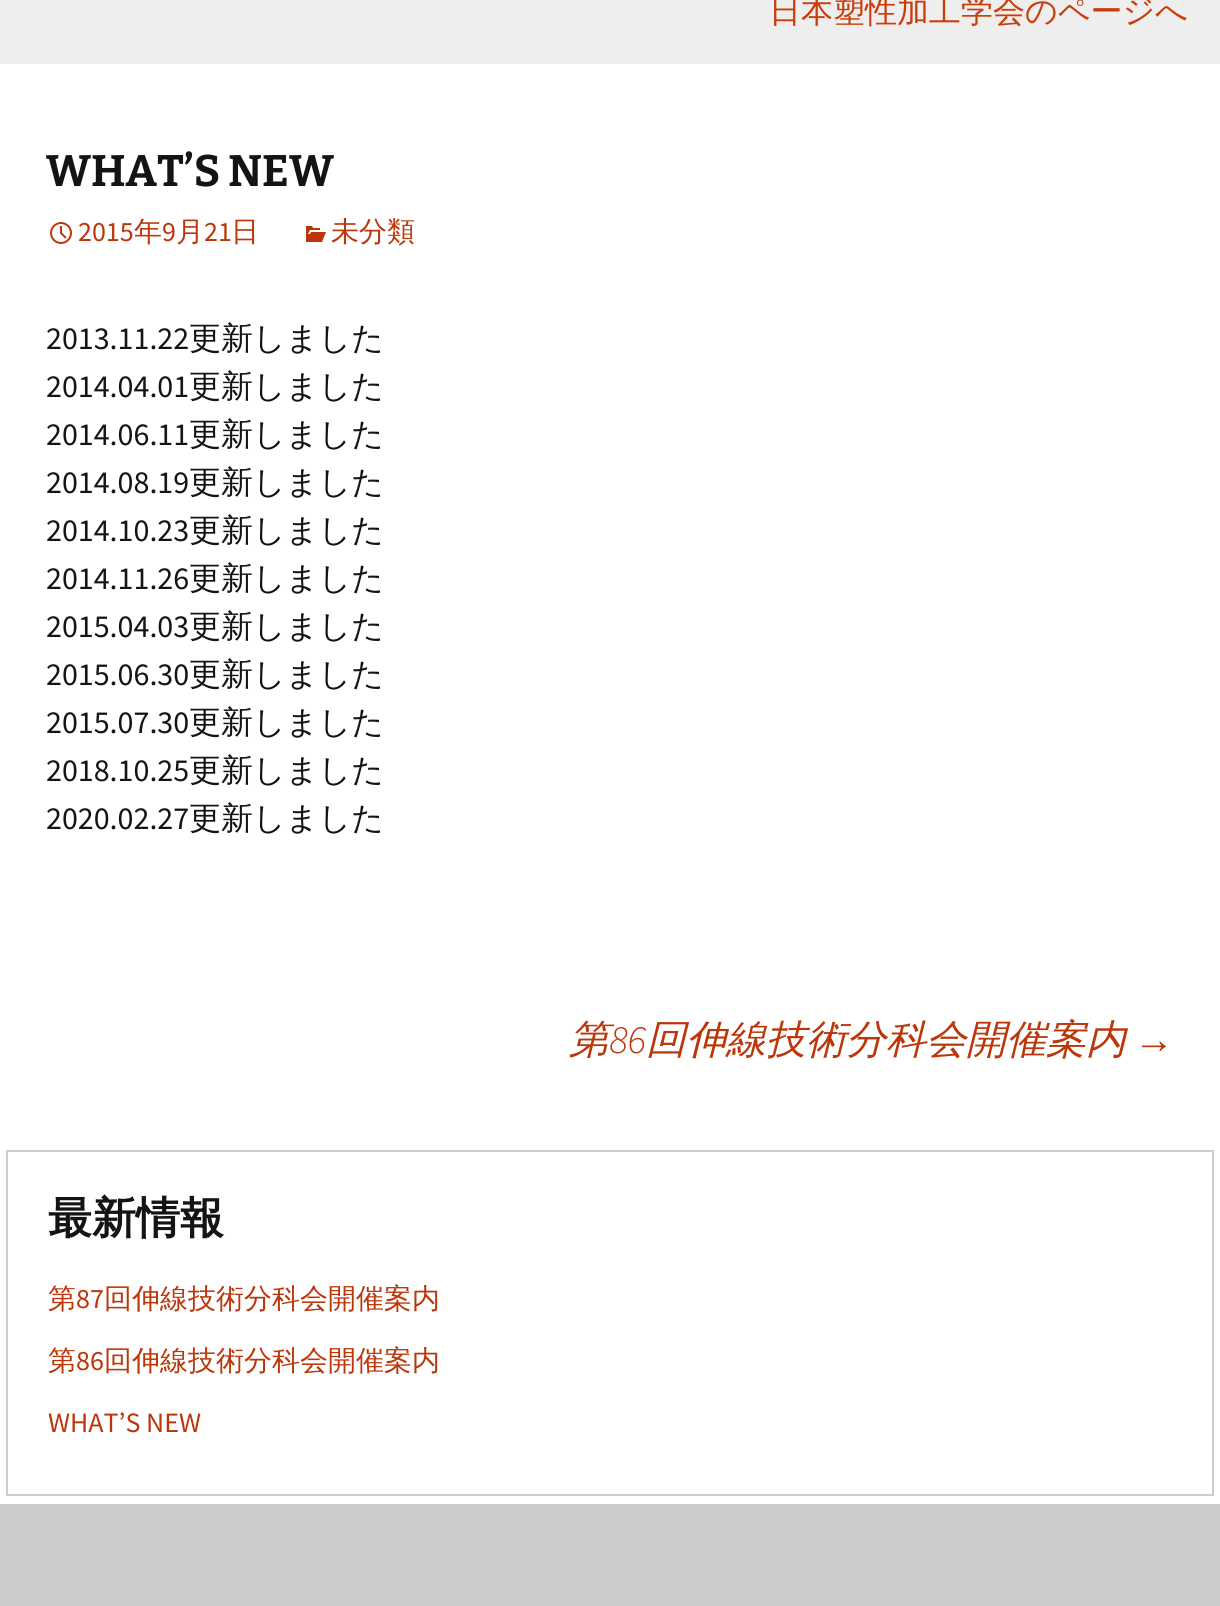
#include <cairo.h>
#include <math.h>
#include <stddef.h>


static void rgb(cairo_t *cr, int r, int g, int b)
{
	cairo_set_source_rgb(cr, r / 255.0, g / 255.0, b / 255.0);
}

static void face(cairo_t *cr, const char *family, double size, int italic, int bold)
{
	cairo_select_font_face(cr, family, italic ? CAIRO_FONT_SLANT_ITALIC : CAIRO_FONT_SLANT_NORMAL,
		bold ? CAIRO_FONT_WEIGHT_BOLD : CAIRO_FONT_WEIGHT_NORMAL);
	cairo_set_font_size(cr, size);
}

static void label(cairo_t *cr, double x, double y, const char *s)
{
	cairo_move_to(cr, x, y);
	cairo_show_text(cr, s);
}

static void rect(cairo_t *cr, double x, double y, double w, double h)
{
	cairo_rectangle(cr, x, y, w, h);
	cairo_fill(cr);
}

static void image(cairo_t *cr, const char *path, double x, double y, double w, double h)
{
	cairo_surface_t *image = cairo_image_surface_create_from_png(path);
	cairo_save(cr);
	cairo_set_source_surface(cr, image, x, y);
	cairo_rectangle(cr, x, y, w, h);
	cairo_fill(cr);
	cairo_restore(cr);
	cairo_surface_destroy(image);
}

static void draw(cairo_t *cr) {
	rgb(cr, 255, 255, 255);
	cairo_paint(cr);
	rgb(cr, 238, 238, 238);
	rect(cr, 0, 0, 1220, 64);
	face(cr, "WenQuanYi Zen Hei Medium", 32, 0, 0);
	rgb(cr, 202, 60, 8);
	label(cr, 769, 22, "日本塑性加工学会のページへ");
	face(cr, "Bitter", 44, 0, 1);
	rgb(cr, 20, 20, 18);
	label(cr, 46, 186, "WHAT’S NEW");
	image(cr, "image0.png", 50, 222, 22, 22);
	face(cr, "Source Sans Pro", 28, 0, 0);
	rgb(cr, 188, 54, 10);
	label(cr, 78, 241, "2015");
	face(cr, "WenQuanYi Zen Hei Medium", 28, 0, 0);
	label(cr, 134, 241, "年");
	face(cr, "Source Sans Pro", 28, 0, 0);
	label(cr, 162, 241, "9");
	face(cr, "WenQuanYi Zen Hei Medium", 28, 0, 0);
	label(cr, 176, 241, "月");
	face(cr, "Source Sans Pro", 28, 0, 0);
	label(cr, 204, 241, "21");
	face(cr, "WenQuanYi Zen Hei Medium", 28, 0, 0);
	label(cr, 231, 241, "日");
	image(cr, "image1.png", 306, 226, 20, 16);
	label(cr, 331, 241, "未分類");
	face(cr, "Source Sans Pro", 32, 0, 0);
	rgb(cr, 20, 20, 18);
	label(cr, 46, 349, "2013.11.22");
	face(cr, "WenQuanYi Zen Hei Medium", 32, 0, 0);
	label(cr, 189, 349, "更新しました");
	face(cr, "Source Sans Pro", 32, 0, 0);
	label(cr, 46, 397, "2014.04.01");
	face(cr, "WenQuanYi Zen Hei Medium", 32, 0, 0);
	label(cr, 189, 397, "更新しました");
	face(cr, "Source Sans Pro", 32, 0, 0);
	label(cr, 46, 445, "2014.06.11");
	face(cr, "WenQuanYi Zen Hei Medium", 32, 0, 0);
	label(cr, 189, 445, "更新しました");
	face(cr, "Source Sans Pro", 32, 0, 0);
	label(cr, 46, 493, "2014.08.19");
	face(cr, "WenQuanYi Zen Hei Medium", 32, 0, 0);
	label(cr, 189, 493, "更新しました");
	face(cr, "Source Sans Pro", 32, 0, 0);
	label(cr, 46, 541, "2014.10.23");
	face(cr, "WenQuanYi Zen Hei Medium", 32, 0, 0);
	label(cr, 189, 541, "更新しました");
	face(cr, "Source Sans Pro", 32, 0, 0);
	label(cr, 46, 589, "2014.11.26");
	face(cr, "WenQuanYi Zen Hei Medium", 32, 0, 0);
	label(cr, 189, 589, "更新しました");
	face(cr, "Source Sans Pro", 32, 0, 0);
	label(cr, 46, 637, "2015.04.03");
	face(cr, "WenQuanYi Zen Hei Medium", 32, 0, 0);
	label(cr, 189, 637, "更新しました");
	face(cr, "Source Sans Pro", 32, 0, 0);
	label(cr, 46, 685, "2015.06.30");
	face(cr, "WenQuanYi Zen Hei Medium", 32, 0, 0);
	label(cr, 189, 685, "更新しました");
	face(cr, "Source Sans Pro", 32, 0, 0);
	label(cr, 46, 733, "2015.07.30");
	face(cr, "WenQuanYi Zen Hei Medium", 32, 0, 0);
	label(cr, 189, 733, "更新しました");
	face(cr, "Source Sans Pro", 32, 0, 0);
	label(cr, 46, 781, "2018.10.25");
	face(cr, "WenQuanYi Zen Hei Medium", 32, 0, 0);
	label(cr, 189, 781, "更新しました");
	face(cr, "Source Sans Pro", 32, 0, 0);
	label(cr, 46, 829, "2020.02.27");
	face(cr, "WenQuanYi Zen Hei Medium", 32, 0, 0);
	label(cr, 189, 829, "更新しました");
	face(cr, "WenQuanYi Zen Hei Medium", 40, 1, 0);
	rgb(cr, 188, 54, 10);
	label(cr, 569, 1053, "第");
	face(cr, "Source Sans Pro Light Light", 40, 1, 0);
	label(cr, 609, 1053, "86");
	face(cr, "WenQuanYi Zen Hei Medium", 40, 1, 0);
	label(cr, 646, 1053, "回伸線技術分科会開催案内");
	face(cr, "Liberation Sans", 40, 1, 0);
	label(cr, 1134, 1053, "→");
	cairo_rectangle(cr, 7, 1151, 1206, 344);
	rgb(cr, 204, 204, 204);
	cairo_stroke(cr);
	face(cr, "WenQuanYi Zen Hei", 44, 0, 1);
	rgb(cr, 20, 20, 18);
	label(cr, 48, 1233, "最新情報");
	face(cr, "WenQuanYi Zen Hei Medium", 28, 0, 0);
	rgb(cr, 188, 54, 10);
	label(cr, 48, 1308, "第");
	face(cr, "Source Sans Pro", 28, 0, 0);
	label(cr, 76, 1308, "87");
	face(cr, "WenQuanYi Zen Hei Medium", 28, 0, 0);
	label(cr, 104, 1308, "回伸線技術分科会開催案内");
	label(cr, 48, 1370, "第");
	face(cr, "Source Sans Pro", 28, 0, 0);
	label(cr, 76, 1370, "86");
	face(cr, "WenQuanYi Zen Hei Medium", 28, 0, 0);
	label(cr, 104, 1370, "回伸線技術分科会開催案内");
	face(cr, "Source Sans Pro", 28, 0, 0);
	label(cr, 48, 1432, "WHAT’S NEW");
	rgb(cr, 204, 204, 204);
	rect(cr, 0, 1504, 1220, 102);
}

int main(void) {
	cairo_surface_t *surface = cairo_image_surface_create(CAIRO_FORMAT_RGB24, 1220, 1606);
	cairo_t *cr = cairo_create(surface);
	cairo_font_options_t *options = cairo_font_options_create();
	cairo_font_options_set_hint_metrics(options, CAIRO_HINT_METRICS_OFF);
	cairo_font_options_set_hint_style(options, CAIRO_HINT_STYLE_NONE);
	cairo_set_font_options(cr, options);
	cairo_set_miter_limit(cr, 4);
	draw(cr);
	cairo_surface_write_to_png(surface, "render.png");
	cairo_font_options_destroy(options);
	cairo_destroy(cr);
	cairo_surface_destroy(surface);
	return 0;
}
